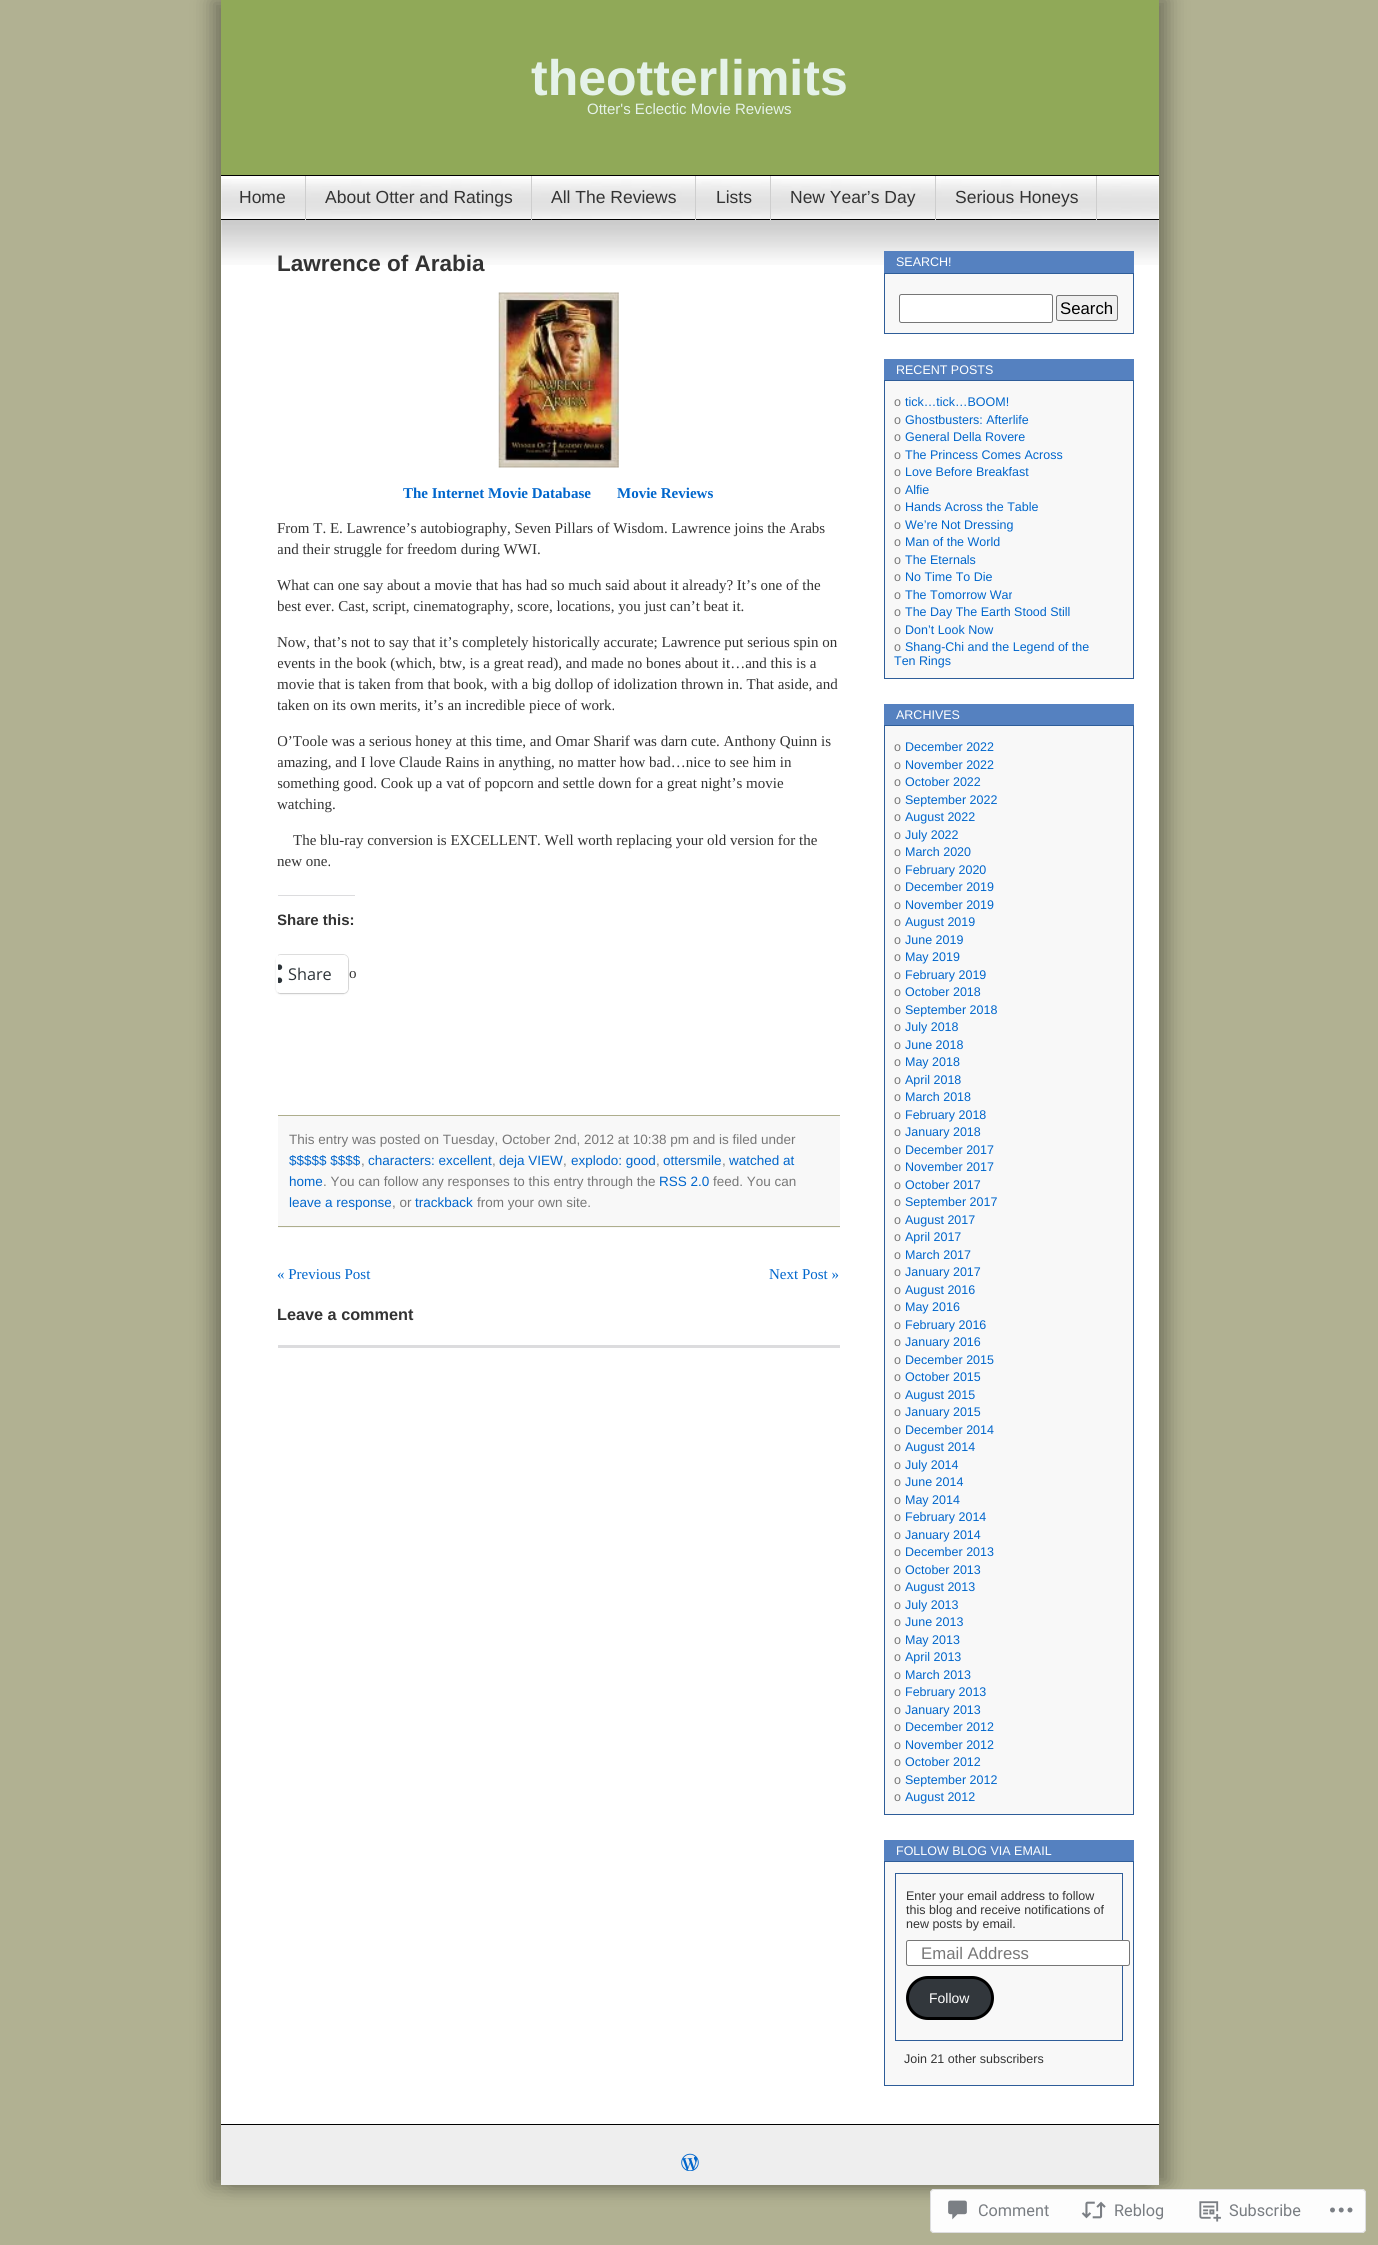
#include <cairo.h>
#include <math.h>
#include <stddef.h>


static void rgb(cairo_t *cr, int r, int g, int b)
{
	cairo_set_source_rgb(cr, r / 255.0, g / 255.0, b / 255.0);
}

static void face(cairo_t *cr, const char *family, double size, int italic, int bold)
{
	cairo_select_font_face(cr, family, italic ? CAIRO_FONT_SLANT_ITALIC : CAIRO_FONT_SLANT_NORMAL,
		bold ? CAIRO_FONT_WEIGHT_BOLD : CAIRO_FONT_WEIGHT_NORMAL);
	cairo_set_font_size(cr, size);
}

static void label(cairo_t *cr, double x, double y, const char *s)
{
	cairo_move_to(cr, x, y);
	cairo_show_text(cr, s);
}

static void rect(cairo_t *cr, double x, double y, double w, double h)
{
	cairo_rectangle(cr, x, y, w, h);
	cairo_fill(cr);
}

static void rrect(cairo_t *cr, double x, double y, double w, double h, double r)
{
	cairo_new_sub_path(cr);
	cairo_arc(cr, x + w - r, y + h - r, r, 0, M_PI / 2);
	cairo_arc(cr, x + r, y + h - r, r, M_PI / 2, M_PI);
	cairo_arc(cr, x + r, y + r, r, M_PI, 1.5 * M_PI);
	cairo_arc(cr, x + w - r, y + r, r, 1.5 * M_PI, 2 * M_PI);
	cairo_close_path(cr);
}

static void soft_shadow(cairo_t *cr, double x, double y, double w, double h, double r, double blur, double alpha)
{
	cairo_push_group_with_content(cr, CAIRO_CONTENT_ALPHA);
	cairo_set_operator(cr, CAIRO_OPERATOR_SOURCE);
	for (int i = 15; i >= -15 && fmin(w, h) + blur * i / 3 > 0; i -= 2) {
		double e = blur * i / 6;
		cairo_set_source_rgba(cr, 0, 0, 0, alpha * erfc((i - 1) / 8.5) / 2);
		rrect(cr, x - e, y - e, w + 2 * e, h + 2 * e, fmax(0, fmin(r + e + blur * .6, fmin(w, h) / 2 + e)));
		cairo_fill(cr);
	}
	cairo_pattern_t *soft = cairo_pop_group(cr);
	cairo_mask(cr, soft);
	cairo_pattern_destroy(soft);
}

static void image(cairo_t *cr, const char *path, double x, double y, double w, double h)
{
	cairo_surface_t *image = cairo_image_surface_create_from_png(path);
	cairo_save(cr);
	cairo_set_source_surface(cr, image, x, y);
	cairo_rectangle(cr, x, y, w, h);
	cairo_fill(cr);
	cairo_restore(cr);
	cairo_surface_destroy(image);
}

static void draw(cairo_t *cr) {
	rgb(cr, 177, 177, 146);
	cairo_paint(cr);
	rgb(cr, 0, 0, 0);
	soft_shadow(cr, 211, 0, 938, 2185, 0, 10, 0.3);
	soft_shadow(cr, 231, -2, 938, 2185, 0, 10, 0.3);
	rgb(cr, 255, 255, 255);
	rect(cr, 221, 176, 938, 1948);
	rgb(cr, 0, 0, 0);
	rect(cr, 221, 175, 938, 1);
	rgb(cr, 144, 169, 88);
	rect(cr, 221, 0, 938, 175);
	face(cr, "Liberation Sans", 50, 0, 1);
	rgb(cr, 229, 242, 233);
	label(cr, 531, 95, "theotterlimits");
	face(cr, "Liberation Sans", 15, 0, 0);
	label(cr, 587, 114, "Otter's Eclectic Movie Reviews");
	image(cr, "image0.png", 221, 179, 938, 40);
	rgb(cr, 0, 0, 0);
	rect(cr, 221, 219, 938, 1);
	rgb(cr, 206, 206, 206);
	rect(cr, 305, 176, 1, 44);
	face(cr, "Liberation Sans", 17.5, 0, 0);
	rgb(cr, 51, 51, 51);
	label(cr, 239, 203, "Home");
	rgb(cr, 206, 206, 206);
	rect(cr, 531, 176, 1, 44);
	rgb(cr, 51, 51, 51);
	label(cr, 325, 203, "About Otter and Ratings");
	rgb(cr, 206, 206, 206);
	rect(cr, 695, 176, 1, 44);
	rgb(cr, 51, 51, 51);
	label(cr, 551, 203, "All The Reviews");
	rgb(cr, 206, 206, 206);
	rect(cr, 770, 176, 1, 44);
	rgb(cr, 51, 51, 51);
	label(cr, 716, 203, "Lists");
	rgb(cr, 206, 206, 206);
	rect(cr, 935, 176, 1, 44);
	rgb(cr, 51, 51, 51);
	label(cr, 790, 203, "New Year’s Day");
	rgb(cr, 206, 206, 206);
	rect(cr, 1096, 176, 1, 44);
	rgb(cr, 51, 51, 51);
	label(cr, 955, 203, "Serious Honeys");
	image(cr, "image1.png", 221, 220, 938, 45);
	face(cr, "Liberation Sans", 22.5, 0, 1);
	label(cr, 277, 271, "Lawrence of Arabia");
	image(cr, "image2.png", 498, 292, 121, 176);
	face(cr, "Liberation Serif", 15, 0, 1);
	rgb(cr, 0, 102, 204);
	label(cr, 403, 498, "The Internet Movie Database");
	label(cr, 617, 498, "Movie Reviews");
	face(cr, "Liberation Serif", 15, 0, 0);
	rgb(cr, 51, 51, 51);
	label(cr, 277, 533, "From T. E. Lawrence’s autobiography, Seven Pillars of Wisdom. Lawrence joins the Arabs");
	cairo_save(cr);
	cairo_rectangle(cr, 278, 278, 562, 1007);
	cairo_clip(cr);
	label(cr, 277, 554, "and their struggle for freedom during WWI.");
	cairo_restore(cr);
	label(cr, 277, 590, "What can one say about a movie that has had so much said about it already? It’s one of the");
	cairo_save(cr);
	cairo_rectangle(cr, 278, 278, 562, 1007);
	cairo_clip(cr);
	label(cr, 277, 611, "best ever. Cast, script, cinematography, score, locations, you just can’t beat it.");
	cairo_restore(cr);
	label(cr, 277, 647, "Now, that’s not to say that it’s completely historically accurate; Lawrence put serious spin on");
	cairo_save(cr);
	cairo_rectangle(cr, 278, 278, 562, 1007);
	cairo_clip(cr);
	label(cr, 277, 668, "events in the book (which, btw, is a great read), and made no bones about it…and this is a");
	cairo_restore(cr);
	label(cr, 277, 689, "movie that is taken from that book, with a big dollop of idolization thrown in. That aside, and");
	cairo_save(cr);
	cairo_rectangle(cr, 278, 278, 562, 1007);
	cairo_clip(cr);
	label(cr, 277, 710, "taken on its own merits, it’s an incredible piece of work.");
	label(cr, 277, 746, "O’Toole was a serious honey at this time, and Omar Sharif was darn cute. Anthony Quinn is");
	label(cr, 277, 767, "amazing, and I love Claude Rains in anything, no matter how bad…nice to see him in");
	label(cr, 277, 788, "something good. Cook up a vat of popcorn and settle down for a great night’s movie");
	cairo_restore(cr);
	label(cr, 277, 809, "watching.");
	label(cr, 293, 845, "The blu-ray conversion is EXCELLENT. Well worth replacing your old version for the");
	label(cr, 277, 866, "new one.");
	rgb(cr, 220, 220, 222);
	rect(cr, 278, 895, 77, 1);
	cairo_save(cr);
	cairo_rectangle(cr, 278, 278, 562, 1007);
	cairo_clip(cr);
	face(cr, "Liberation Sans", 15, 0, 1);
	rgb(cr, 51, 51, 51);
	label(cr, 277, 925, "Share this:");
	rrect(cr, 275.5, 954.5, 73, 39, 5.5);
	rgb(cr, 224, 224, 224);
	cairo_set_line_width(cr, 1);
	cairo_stroke(cr);
	cairo_restore(cr);
	cairo_save(cr);
	cairo_set_fill_rule(cr, CAIRO_FILL_RULE_EVEN_ODD);
	cairo_new_path(cr);
	cairo_move_to(cr, 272, 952);
	cairo_line_to(cr, 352, 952);
	cairo_line_to(cr, 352, 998);
	cairo_line_to(cr, 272, 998);
	cairo_close_path(cr);
	cairo_move_to(cr, 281, 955);
	cairo_line_to(cr, 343, 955);
	cairo_curve_to(cr, 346, 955, 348, 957, 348, 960);
	cairo_line_to(cr, 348, 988);
	cairo_curve_to(cr, 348, 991, 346, 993, 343, 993);
	cairo_line_to(cr, 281, 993);
	cairo_curve_to(cr, 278, 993, 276, 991, 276, 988);
	cairo_line_to(cr, 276, 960);
	cairo_curve_to(cr, 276, 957, 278, 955, 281, 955);
	cairo_close_path(cr);
	cairo_clip(cr);
	rgb(cr, 0, 0, 0);
	soft_shadow(cr, 276, 956, 72, 38, 5, 1, 0.12);
	cairo_restore(cr);
	cairo_save(cr);
	cairo_rectangle(cr, 278, 278, 562, 1007);
	cairo_clip(cr);
	rgb(cr, 255, 255, 255);
	rrect(cr, 276, 955, 72, 38, 5);
	cairo_fill(cr);
	cairo_restore(cr);
	image(cr, "image3.png", 278, 964, 5, 20);
	face(cr, "Open Sans", 16.25, 0, 0);
	rgb(cr, 44, 51, 56);
	label(cr, 288, 980, "Share");
	face(cr, "Liberation Serif", 15, 0, 0);
	rgb(cr, 51, 51, 51);
	label(cr, 349, 978, "o");
	rgb(cr, 248, 248, 248);
	rect(cr, 278, 1116, 562, 112);
	rgb(cr, 174, 174, 141);
	rect(cr, 278, 1115, 562, 1);
	rect(cr, 278, 1226, 562, 1);
	face(cr, "Liberation Sans", 13.5, 0, 0);
	rgb(cr, 119, 119, 119);
	label(cr, 289, 1144, "This entry was posted on Tuesday, October 2nd, 2012 at 10:38 pm and is filed under");
	rgb(cr, 0, 102, 204);
	label(cr, 289, 1165, "$$$$$ $$$$");
	rgb(cr, 119, 119, 119);
	label(cr, 361, 1165, ",");
	rgb(cr, 0, 102, 204);
	label(cr, 368, 1165, "characters: excellent");
	rgb(cr, 119, 119, 119);
	label(cr, 492, 1165, ",");
	rgb(cr, 0, 102, 204);
	label(cr, 499, 1165, "deja VIEW");
	rgb(cr, 119, 119, 119);
	label(cr, 563, 1165, ",");
	rgb(cr, 0, 102, 204);
	label(cr, 571, 1165, "explodo: good");
	rgb(cr, 119, 119, 119);
	label(cr, 656, 1165, ",");
	rgb(cr, 0, 102, 204);
	label(cr, 663, 1165, "ottersmile");
	rgb(cr, 119, 119, 119);
	label(cr, 722, 1165, ",");
	rgb(cr, 0, 102, 204);
	label(cr, 729, 1165, "watched at");
	label(cr, 289, 1186, "home");
	rgb(cr, 119, 119, 119);
	label(cr, 323, 1186, ". You can follow any responses to this entry through the");
	rgb(cr, 0, 102, 204);
	label(cr, 659, 1186, "RSS 2.0");
	rgb(cr, 119, 119, 119);
	label(cr, 713, 1186, "feed. You can");
	rgb(cr, 0, 102, 204);
	label(cr, 289, 1207, "leave a response");
	rgb(cr, 119, 119, 119);
	label(cr, 392, 1207, ", or");
	rgb(cr, 0, 102, 204);
	label(cr, 415, 1207, "trackback");
	rgb(cr, 119, 119, 119);
	label(cr, 477, 1207, "from your own site.");
	face(cr, "Liberation Serif", 15, 0, 0);
	rgb(cr, 0, 102, 204);
	label(cr, 277, 1279, "« Previous Post");
	label(cr, 769, 1279, "Next Post »");
	face(cr, "Liberation Sans", 16.25, 0, 1);
	rgb(cr, 51, 51, 51);
	label(cr, 277, 1320, "Leave a comment");
	rgb(cr, 220, 220, 222);
	rect(cr, 278, 1345, 562, 3);
	rgb(cr, 85, 129, 192);
	rect(cr, 884, 251, 250, 22);
	face(cr, "Liberation Sans", 12.5, 0, 0);
	rgb(cr, 255, 255, 255);
	label(cr, 896, 266, "SEARCH!");
	rgb(cr, 248, 248, 248);
	cairo_rectangle(cr, 884.5, 273.5, 249, 60);
	cairo_fill_preserve(cr);
	rgb(cr, 46, 93, 153);
	cairo_set_line_width(cr, 1);
	cairo_stroke(cr);
	rgb(cr, 255, 255, 255);
	rrect(cr, 899.5, 294.5, 153, 28, 2);
	cairo_fill_preserve(cr);
	rgb(cr, 118, 118, 118);
	cairo_stroke(cr);
	rgb(cr, 239, 239, 239);
	rrect(cr, 1056.5, 295.5, 61, 25, 2);
	cairo_fill_preserve(cr);
	rgb(cr, 118, 118, 118);
	cairo_stroke(cr);
	face(cr, "Liberation Sans", 16.75, 0, 0);
	rgb(cr, 0, 0, 0);
	label(cr, 1060, 314, "Search");
	rgb(cr, 85, 129, 192);
	rect(cr, 884, 359, 250, 21);
	face(cr, "Liberation Sans", 12.5, 0, 0);
	rgb(cr, 255, 255, 255);
	label(cr, 896, 374, "RECENT POSTS");
	rgb(cr, 248, 248, 248);
	cairo_rectangle(cr, 884.5, 380.5, 249, 298);
	cairo_fill_preserve(cr);
	rgb(cr, 46, 93, 153);
	cairo_stroke(cr);
	rgb(cr, 119, 119, 119);
	label(cr, 894, 406, "o");
	rgb(cr, 0, 102, 204);
	label(cr, 905, 406, "tick…tick…BOOM!");
	rgb(cr, 119, 119, 119);
	label(cr, 894, 424, "o");
	rgb(cr, 0, 102, 204);
	label(cr, 905, 424, "Ghostbusters: Afterlife");
	rgb(cr, 119, 119, 119);
	label(cr, 894, 441, "o");
	rgb(cr, 0, 102, 204);
	label(cr, 905, 441, "General Della Rovere");
	rgb(cr, 119, 119, 119);
	label(cr, 894, 459, "o");
	rgb(cr, 0, 102, 204);
	label(cr, 905, 459, "The Princess Comes Across");
	rgb(cr, 119, 119, 119);
	label(cr, 894, 476, "o");
	rgb(cr, 0, 102, 204);
	label(cr, 905, 476, "Love Before Breakfast");
	rgb(cr, 119, 119, 119);
	label(cr, 894, 494, "o");
	rgb(cr, 0, 102, 204);
	label(cr, 905, 494, "Alfie");
	rgb(cr, 119, 119, 119);
	label(cr, 894, 511, "o");
	rgb(cr, 0, 102, 204);
	label(cr, 905, 511, "Hands Across the Table");
	rgb(cr, 119, 119, 119);
	label(cr, 894, 529, "o");
	rgb(cr, 0, 102, 204);
	label(cr, 905, 529, "We’re Not Dressing");
	rgb(cr, 119, 119, 119);
	label(cr, 894, 546, "o");
	rgb(cr, 0, 102, 204);
	label(cr, 905, 546, "Man of the World");
	rgb(cr, 119, 119, 119);
	label(cr, 894, 564, "o");
	rgb(cr, 0, 102, 204);
	label(cr, 905, 564, "The Eternals");
	rgb(cr, 119, 119, 119);
	label(cr, 894, 581, "o");
	rgb(cr, 0, 102, 204);
	label(cr, 905, 581, "No Time To Die");
	rgb(cr, 119, 119, 119);
	label(cr, 894, 599, "o");
	rgb(cr, 0, 102, 204);
	label(cr, 905, 599, "The Tomorrow War");
	rgb(cr, 119, 119, 119);
	label(cr, 894, 616, "o");
	rgb(cr, 0, 102, 204);
	label(cr, 905, 616, "The Day The Earth Stood Still");
	rgb(cr, 119, 119, 119);
	label(cr, 894, 634, "o");
	rgb(cr, 0, 102, 204);
	label(cr, 905, 634, "Don’t Look Now");
	rgb(cr, 119, 119, 119);
	label(cr, 894, 651, "o");
	rgb(cr, 0, 102, 204);
	label(cr, 905, 651, "Shang-Chi and the Legend of the");
	label(cr, 894, 665, "Ten Rings");
	rgb(cr, 85, 129, 192);
	rect(cr, 884, 704, 250, 21);
	rgb(cr, 255, 255, 255);
	label(cr, 896, 719, "ARCHIVES");
	rgb(cr, 248, 248, 248);
	cairo_rectangle(cr, 884.5, 725.5, 249, 1089);
	cairo_fill_preserve(cr);
	rgb(cr, 46, 93, 153);
	cairo_stroke(cr);
	rgb(cr, 119, 119, 119);
	label(cr, 894, 751, "o");
	rgb(cr, 0, 102, 204);
	label(cr, 905, 751, "December 2022");
	rgb(cr, 119, 119, 119);
	label(cr, 894, 769, "o");
	rgb(cr, 0, 102, 204);
	label(cr, 905, 769, "November 2022");
	rgb(cr, 119, 119, 119);
	label(cr, 894, 786, "o");
	rgb(cr, 0, 102, 204);
	label(cr, 905, 786, "October 2022");
	rgb(cr, 119, 119, 119);
	label(cr, 894, 804, "o");
	rgb(cr, 0, 102, 204);
	label(cr, 905, 804, "September 2022");
	rgb(cr, 119, 119, 119);
	label(cr, 894, 821, "o");
	rgb(cr, 0, 102, 204);
	label(cr, 905, 821, "August 2022");
	rgb(cr, 119, 119, 119);
	label(cr, 894, 839, "o");
	rgb(cr, 0, 102, 204);
	label(cr, 905, 839, "July 2022");
	rgb(cr, 119, 119, 119);
	label(cr, 894, 856, "o");
	rgb(cr, 0, 102, 204);
	label(cr, 905, 856, "March 2020");
	rgb(cr, 119, 119, 119);
	label(cr, 894, 874, "o");
	rgb(cr, 0, 102, 204);
	label(cr, 905, 874, "February 2020");
	rgb(cr, 119, 119, 119);
	label(cr, 894, 891, "o");
	rgb(cr, 0, 102, 204);
	label(cr, 905, 891, "December 2019");
	rgb(cr, 119, 119, 119);
	label(cr, 894, 909, "o");
	rgb(cr, 0, 102, 204);
	label(cr, 905, 909, "November 2019");
	rgb(cr, 119, 119, 119);
	label(cr, 894, 926, "o");
	rgb(cr, 0, 102, 204);
	label(cr, 905, 926, "August 2019");
	rgb(cr, 119, 119, 119);
	label(cr, 894, 944, "o");
	rgb(cr, 0, 102, 204);
	label(cr, 905, 944, "June 2019");
	rgb(cr, 119, 119, 119);
	label(cr, 894, 961, "o");
	rgb(cr, 0, 102, 204);
	label(cr, 905, 961, "May 2019");
	rgb(cr, 119, 119, 119);
	label(cr, 894, 979, "o");
	rgb(cr, 0, 102, 204);
	label(cr, 905, 979, "February 2019");
	rgb(cr, 119, 119, 119);
	label(cr, 894, 996, "o");
	rgb(cr, 0, 102, 204);
	label(cr, 905, 996, "October 2018");
	rgb(cr, 119, 119, 119);
	label(cr, 894, 1014, "o");
	rgb(cr, 0, 102, 204);
	label(cr, 905, 1014, "September 2018");
	rgb(cr, 119, 119, 119);
	label(cr, 894, 1031, "o");
	rgb(cr, 0, 102, 204);
	label(cr, 905, 1031, "July 2018");
	rgb(cr, 119, 119, 119);
	label(cr, 894, 1049, "o");
	rgb(cr, 0, 102, 204);
	label(cr, 905, 1049, "June 2018");
	rgb(cr, 119, 119, 119);
	label(cr, 894, 1066, "o");
	rgb(cr, 0, 102, 204);
	label(cr, 905, 1066, "May 2018");
	rgb(cr, 119, 119, 119);
	label(cr, 894, 1084, "o");
	rgb(cr, 0, 102, 204);
	label(cr, 905, 1084, "April 2018");
	rgb(cr, 119, 119, 119);
	label(cr, 894, 1101, "o");
	rgb(cr, 0, 102, 204);
	label(cr, 905, 1101, "March 2018");
	rgb(cr, 119, 119, 119);
	label(cr, 894, 1119, "o");
	rgb(cr, 0, 102, 204);
	label(cr, 905, 1119, "February 2018");
	rgb(cr, 119, 119, 119);
	label(cr, 894, 1136, "o");
	rgb(cr, 0, 102, 204);
	label(cr, 905, 1136, "January 2018");
	rgb(cr, 119, 119, 119);
	label(cr, 894, 1154, "o");
	rgb(cr, 0, 102, 204);
	label(cr, 905, 1154, "December 2017");
	rgb(cr, 119, 119, 119);
	label(cr, 894, 1171, "o");
	rgb(cr, 0, 102, 204);
	label(cr, 905, 1171, "November 2017");
	rgb(cr, 119, 119, 119);
	label(cr, 894, 1189, "o");
	rgb(cr, 0, 102, 204);
	label(cr, 905, 1189, "October 2017");
	rgb(cr, 119, 119, 119);
	label(cr, 894, 1206, "o");
	rgb(cr, 0, 102, 204);
	label(cr, 905, 1206, "September 2017");
	rgb(cr, 119, 119, 119);
	label(cr, 894, 1224, "o");
	rgb(cr, 0, 102, 204);
	label(cr, 905, 1224, "August 2017");
	rgb(cr, 119, 119, 119);
	label(cr, 894, 1241, "o");
	rgb(cr, 0, 102, 204);
	label(cr, 905, 1241, "April 2017");
	rgb(cr, 119, 119, 119);
	label(cr, 894, 1259, "o");
	rgb(cr, 0, 102, 204);
	label(cr, 905, 1259, "March 2017");
	rgb(cr, 119, 119, 119);
	label(cr, 894, 1276, "o");
	rgb(cr, 0, 102, 204);
	label(cr, 905, 1276, "January 2017");
	rgb(cr, 119, 119, 119);
	label(cr, 894, 1294, "o");
	rgb(cr, 0, 102, 204);
	label(cr, 905, 1294, "August 2016");
	rgb(cr, 119, 119, 119);
	label(cr, 894, 1311, "o");
	rgb(cr, 0, 102, 204);
	label(cr, 905, 1311, "May 2016");
	rgb(cr, 119, 119, 119);
	label(cr, 894, 1329, "o");
	rgb(cr, 0, 102, 204);
	label(cr, 905, 1329, "February 2016");
	rgb(cr, 119, 119, 119);
	label(cr, 894, 1346, "o");
	rgb(cr, 0, 102, 204);
	label(cr, 905, 1346, "January 2016");
	rgb(cr, 119, 119, 119);
	label(cr, 894, 1364, "o");
	rgb(cr, 0, 102, 204);
	label(cr, 905, 1364, "December 2015");
	rgb(cr, 119, 119, 119);
	label(cr, 894, 1381, "o");
	rgb(cr, 0, 102, 204);
	label(cr, 905, 1381, "October 2015");
	rgb(cr, 119, 119, 119);
	label(cr, 894, 1399, "o");
	rgb(cr, 0, 102, 204);
	label(cr, 905, 1399, "August 2015");
	rgb(cr, 119, 119, 119);
	label(cr, 894, 1416, "o");
	rgb(cr, 0, 102, 204);
	label(cr, 905, 1416, "January 2015");
	rgb(cr, 119, 119, 119);
	label(cr, 894, 1434, "o");
	rgb(cr, 0, 102, 204);
	label(cr, 905, 1434, "December 2014");
	rgb(cr, 119, 119, 119);
	label(cr, 894, 1451, "o");
	rgb(cr, 0, 102, 204);
	label(cr, 905, 1451, "August 2014");
	rgb(cr, 119, 119, 119);
	label(cr, 894, 1469, "o");
	rgb(cr, 0, 102, 204);
	label(cr, 905, 1469, "July 2014");
	rgb(cr, 119, 119, 119);
	label(cr, 894, 1486, "o");
	rgb(cr, 0, 102, 204);
	label(cr, 905, 1486, "June 2014");
	rgb(cr, 119, 119, 119);
	label(cr, 894, 1504, "o");
	rgb(cr, 0, 102, 204);
	label(cr, 905, 1504, "May 2014");
	rgb(cr, 119, 119, 119);
	label(cr, 894, 1521, "o");
	rgb(cr, 0, 102, 204);
	label(cr, 905, 1521, "February 2014");
	rgb(cr, 119, 119, 119);
	label(cr, 894, 1539, "o");
	rgb(cr, 0, 102, 204);
	label(cr, 905, 1539, "January 2014");
	rgb(cr, 119, 119, 119);
	label(cr, 894, 1556, "o");
	rgb(cr, 0, 102, 204);
	label(cr, 905, 1556, "December 2013");
	rgb(cr, 119, 119, 119);
	label(cr, 894, 1574, "o");
	rgb(cr, 0, 102, 204);
	label(cr, 905, 1574, "October 2013");
	rgb(cr, 119, 119, 119);
	label(cr, 894, 1591, "o");
	rgb(cr, 0, 102, 204);
	label(cr, 905, 1591, "August 2013");
	rgb(cr, 119, 119, 119);
	label(cr, 894, 1609, "o");
	rgb(cr, 0, 102, 204);
	label(cr, 905, 1609, "July 2013");
	rgb(cr, 119, 119, 119);
	label(cr, 894, 1626, "o");
	rgb(cr, 0, 102, 204);
	label(cr, 905, 1626, "June 2013");
	rgb(cr, 119, 119, 119);
	label(cr, 894, 1644, "o");
	rgb(cr, 0, 102, 204);
	label(cr, 905, 1644, "May 2013");
	rgb(cr, 119, 119, 119);
	label(cr, 894, 1661, "o");
	rgb(cr, 0, 102, 204);
	label(cr, 905, 1661, "April 2013");
	rgb(cr, 119, 119, 119);
	label(cr, 894, 1679, "o");
	rgb(cr, 0, 102, 204);
	label(cr, 905, 1679, "March 2013");
	rgb(cr, 119, 119, 119);
	label(cr, 894, 1696, "o");
	rgb(cr, 0, 102, 204);
	label(cr, 905, 1696, "February 2013");
	rgb(cr, 119, 119, 119);
	label(cr, 894, 1714, "o");
	rgb(cr, 0, 102, 204);
	label(cr, 905, 1714, "January 2013");
	rgb(cr, 119, 119, 119);
	label(cr, 894, 1731, "o");
	rgb(cr, 0, 102, 204);
	label(cr, 905, 1731, "December 2012");
	rgb(cr, 119, 119, 119);
	label(cr, 894, 1749, "o");
	rgb(cr, 0, 102, 204);
	label(cr, 905, 1749, "November 2012");
	rgb(cr, 119, 119, 119);
	label(cr, 894, 1766, "o");
	rgb(cr, 0, 102, 204);
	label(cr, 905, 1766, "October 2012");
	rgb(cr, 119, 119, 119);
	label(cr, 894, 1784, "o");
	rgb(cr, 0, 102, 204);
	label(cr, 905, 1784, "September 2012");
	rgb(cr, 119, 119, 119);
	label(cr, 894, 1801, "o");
	rgb(cr, 0, 102, 204);
	label(cr, 905, 1801, "August 2012");
	rgb(cr, 85, 129, 192);
	rect(cr, 884, 1840, 250, 21);
	rgb(cr, 255, 255, 255);
	label(cr, 896, 1855, "FOLLOW BLOG VIA EMAIL");
	rgb(cr, 248, 248, 248);
	cairo_rectangle(cr, 884.5, 1861.5, 249, 224);
	cairo_fill_preserve(cr);
	rgb(cr, 46, 93, 153);
	cairo_stroke(cr);
	cairo_rectangle(cr, 895.5, 1873.5, 227, 167);
	cairo_stroke(cr);
	rgb(cr, 51, 51, 51);
	label(cr, 906, 1900, "Enter your email address to follow");
	label(cr, 906, 1914, "this blog and receive notifications of");
	label(cr, 906, 1928, "new posts by email.");
	rgb(cr, 255, 255, 255);
	rrect(cr, 906.5, 1940.5, 223, 25, 2);
	cairo_fill_preserve(cr);
	rgb(cr, 118, 118, 118);
	cairo_stroke(cr);
	face(cr, "Liberation Sans", 16.75, 0, 0);
	rgb(cr, 119, 119, 119);
	label(cr, 921, 1959, "Email Address");
	rgb(cr, 50, 55, 60);
	rrect(cr, 907.5, 1977.5, 85, 41, 20.5);
	cairo_fill_preserve(cr);
	rgb(cr, 0, 0, 0);
	cairo_set_line_width(cr, 3);
	cairo_stroke(cr);
	face(cr, "Liberation Sans", 14, 0, 0);
	rgb(cr, 255, 255, 255);
	label(cr, 929, 2003, "Follow");
	face(cr, "Liberation Sans", 12.5, 0, 0);
	rgb(cr, 51, 51, 51);
	label(cr, 904, 2063, "Join 21 other subscribers");
	rgb(cr, 238, 238, 238);
	rect(cr, 221, 2125, 938, 60);
	rgb(cr, 0, 0, 0);
	rect(cr, 221, 2124, 938, 1);
	image(cr, "image4.png", 681, 2153, 18, 18);
	cairo_set_source_rgba(cr, 1, 1, 1, 0.98);
	rrect(cr, 930, 2189, 436, 44, 4);
	cairo_fill(cr);
	rrect(cr, 930.5, 2189.5, 435, 43, 3.5);
	cairo_set_source_rgba(cr, 0.863, 0.863, 0.871, 0.98);
	cairo_set_line_width(cr, 1);
	cairo_stroke(cr);
	image(cr, "image5.png", 948, 2200, 19, 20);
	face(cr, "Roboto", 16.25, 0, 0);
	rgb(cr, 121, 125, 130);
	label(cr, 978, 2216, "Comment");
	image(cr, "image6.png", 1081, 2201, 25, 18);
	label(cr, 1114, 2216, "Reblog");
	image(cr, "image7.png", 1199, 2201, 22, 21);
	label(cr, 1229, 2216, "Subscribe");
	image(cr, "image8.png", 1330, 2207, 23, 6);
}

int main(void) {
	cairo_surface_t *surface = cairo_image_surface_create(CAIRO_FORMAT_RGB24, 1378, 2245);
	cairo_t *cr = cairo_create(surface);
	cairo_font_options_t *options = cairo_font_options_create();
	cairo_font_options_set_hint_metrics(options, CAIRO_HINT_METRICS_OFF);
	cairo_font_options_set_hint_style(options, CAIRO_HINT_STYLE_NONE);
	cairo_set_font_options(cr, options);
	cairo_set_miter_limit(cr, 4);
	draw(cr);
	cairo_surface_write_to_png(surface, "render.png");
	cairo_font_options_destroy(options);
	cairo_destroy(cr);
	cairo_surface_destroy(surface);
	return 0;
}
